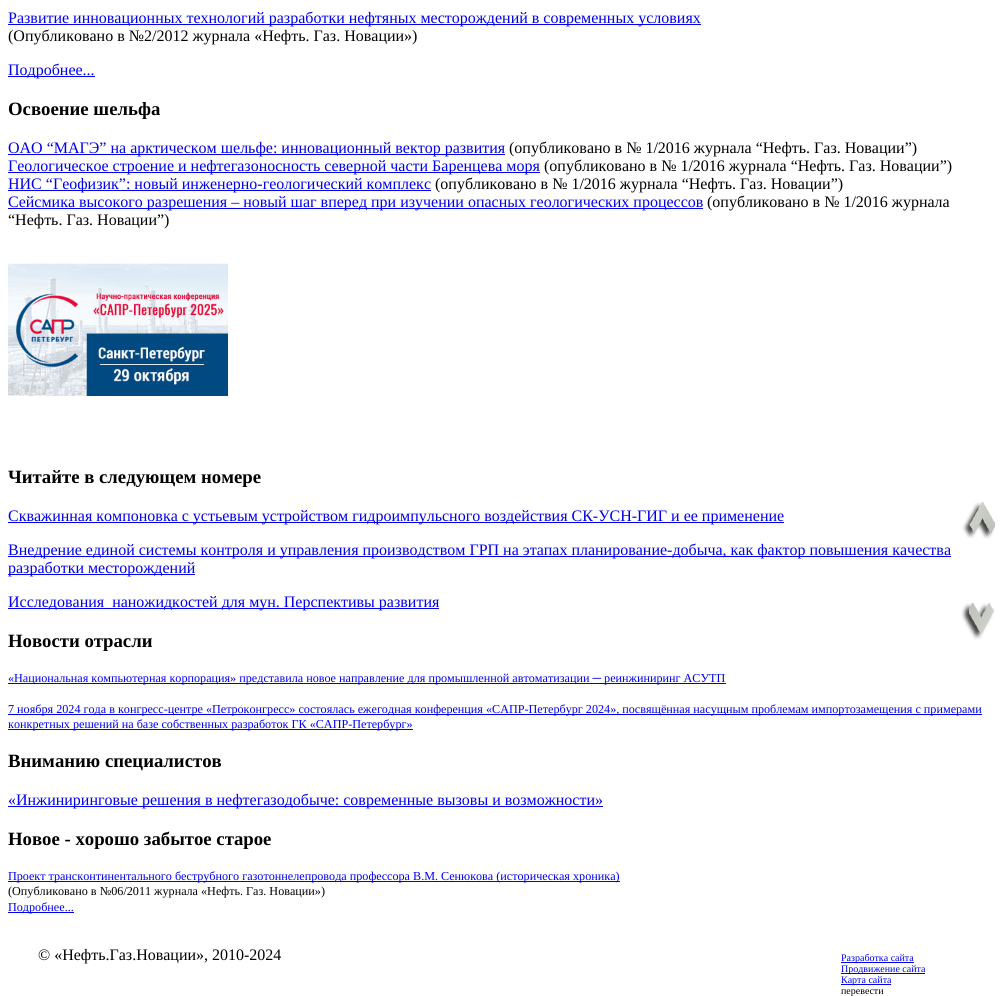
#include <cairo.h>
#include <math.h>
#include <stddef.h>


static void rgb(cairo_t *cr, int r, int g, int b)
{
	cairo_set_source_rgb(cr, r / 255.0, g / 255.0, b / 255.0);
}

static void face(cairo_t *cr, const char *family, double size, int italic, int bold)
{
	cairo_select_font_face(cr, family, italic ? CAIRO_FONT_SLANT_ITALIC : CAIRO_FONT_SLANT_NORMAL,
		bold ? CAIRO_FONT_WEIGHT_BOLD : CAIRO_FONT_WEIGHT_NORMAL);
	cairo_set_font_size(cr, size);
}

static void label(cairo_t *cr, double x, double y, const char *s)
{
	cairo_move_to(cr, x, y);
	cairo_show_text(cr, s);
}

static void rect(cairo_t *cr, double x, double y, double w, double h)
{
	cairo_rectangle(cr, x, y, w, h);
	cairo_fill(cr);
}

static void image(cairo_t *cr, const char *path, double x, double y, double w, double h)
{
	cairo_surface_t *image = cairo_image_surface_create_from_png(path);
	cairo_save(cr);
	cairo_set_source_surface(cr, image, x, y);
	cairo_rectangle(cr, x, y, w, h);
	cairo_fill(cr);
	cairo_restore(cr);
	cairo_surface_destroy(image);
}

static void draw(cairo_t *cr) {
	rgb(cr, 255, 255, 255);
	cairo_paint(cr);
	rgb(cr, 0, 0, 238);
	rect(cr, 8, 24, 693, 1);
	face(cr, "Liberation Serif", 16, 0, 0);
	label(cr, 8, 23, "Развитие инновационных технологий разработки нефтяных месторождений в современных условиях");
	rgb(cr, 0, 0, 0);
	label(cr, 8, 41, "(Опубликовано в №2/2012 журнала «Нефть. Газ. Новации»)");
	rgb(cr, 0, 0, 238);
	rect(cr, 8, 76, 87, 1);
	label(cr, 8, 75, "Подробнее...");
	face(cr, "Liberation Serif", 18.75, 0, 1);
	rgb(cr, 0, 0, 0);
	label(cr, 8, 115, "Освоение шельфа");
	rgb(cr, 0, 0, 238);
	rect(cr, 8, 154, 497, 1);
	face(cr, "Liberation Serif", 16, 0, 0);
	label(cr, 8, 153, "ОАО “МАГЭ” на арктическом шельфе: инновационный вектор развития");
	rgb(cr, 0, 0, 0);
	label(cr, 509, 153, "(опубликовано в № 1/2016 журнала “Нефть. Газ. Новации”)");
	rgb(cr, 0, 0, 238);
	rect(cr, 8, 172, 532, 1);
	label(cr, 8, 171, "Геологическое строение и нефтегазоносность северной части Баренцева моря");
	rgb(cr, 0, 0, 0);
	label(cr, 544, 171, "(опубликовано в № 1/2016 журнала “Нефть. Газ. Новации”)");
	rgb(cr, 0, 0, 238);
	rect(cr, 8, 190, 423, 1);
	label(cr, 8, 189, "НИС “Геофизик”: новый инженерно-геологический комплекс");
	rgb(cr, 0, 0, 0);
	label(cr, 435, 189, "(опубликовано в № 1/2016 журнала “Нефть. Газ. Новации”)");
	rgb(cr, 0, 0, 238);
	rect(cr, 8, 208, 695, 1);
	label(cr, 8, 207, "Сейсмика высокого разрешения – новый шаг вперед при изучении опасных геологических процессов");
	rgb(cr, 0, 0, 0);
	label(cr, 707, 207, "(опубликовано в № 1/2016 журнала");
	label(cr, 8, 225, "“Нефть. Газ. Новации”)");
	image(cr, "image0.png", 8, 263, 220, 133);
	face(cr, "Liberation Serif", 18.75, 0, 1);
	label(cr, 8, 483, "Читайте в следующем номере");
	rgb(cr, 0, 0, 238);
	rect(cr, 8, 522, 776, 1);
	face(cr, "Liberation Serif", 16, 0, 0);
	label(cr, 8, 521, "Скважинная компоновка с устьевым устройством гидроимпульсного воздействия СК-УСН-ГИГ и ее применение");
	rect(cr, 8, 556, 943, 1);
	label(cr, 8, 555, "Внедрение единой системы контроля и управления производством ГРП на этапах планирование-добыча, как фактор повышения качества");
	rect(cr, 8, 574, 187, 1);
	label(cr, 8, 573, "разработки месторождений");
	rect(cr, 8, 608, 431, 1);
	label(cr, 8, 607, "Исследования  наножидкостей для мун. Перспективы развития");
	face(cr, "Liberation Serif", 18.75, 0, 1);
	rgb(cr, 0, 0, 0);
	label(cr, 8, 647, "Новости отрасли");
	rgb(cr, 0, 0, 238);
	rect(cr, 8, 683, 718, 1);
	face(cr, "Liberation Serif", 12.15, 0, 0);
	label(cr, 8, 682, "«Национальная компьютерная корпорация» представила новое направление для промышленной автоматизации ─ реинжиниринг АСУТП");
	rect(cr, 8, 714, 974, 1);
	label(cr, 8, 713, "7 ноября 2024 года в конгресс-центре «Петроконгресс» состоялась ежегодная конференция «САПР-Петербург 2024», посвящённая насущным проблемам импортозамещения с примерами");
	rect(cr, 8, 729, 405, 1);
	label(cr, 8, 728, "конкретных решений на базе собственных разработок ГК «САПР-Петербург»");
	face(cr, "Liberation Serif", 18.75, 0, 1);
	rgb(cr, 0, 0, 0);
	label(cr, 8, 767, "Вниманию специалистов");
	rgb(cr, 0, 0, 238);
	rect(cr, 8, 806, 595, 1);
	face(cr, "Liberation Serif", 16, 0, 0);
	label(cr, 8, 805, "«Инжиниринговые решения в нефтегазодобыче: современные вызовы и возможности»");
	face(cr, "Liberation Serif", 18.75, 0, 1);
	rgb(cr, 0, 0, 0);
	label(cr, 8, 845, "Новое - хорошо забытое старое");
	rgb(cr, 0, 0, 238);
	rect(cr, 8, 881, 612, 1);
	face(cr, "Liberation Serif", 12.15, 0, 0);
	label(cr, 8, 880, "Проект трансконтинентального беструбного газотоннелепровода профессора В.М. Сенюкова (историческая хроника)");
	rgb(cr, 0, 0, 0);
	label(cr, 8, 895, "(Опубликовано в №06/2011 журнала «Нефть. Газ. Новации»)");
	rgb(cr, 0, 0, 238);
	rect(cr, 8, 912, 66, 1);
	label(cr, 8, 911, "Подробнее...");
	face(cr, "Liberation Serif", 16, 0, 0);
	rgb(cr, 0, 0, 0);
	label(cr, 38, 960, "© «Нефть.Газ.Новации», 2010-2024");
	rgb(cr, 0, 0, 238);
	rect(cr, 841, 962, 73, 1);
	face(cr, "Liberation Serif", 10, 0, 0);
	label(cr, 841, 961, "Разработка сайта");
	rect(cr, 841, 973, 84, 1);
	label(cr, 841, 972, "Продвижение сайта");
	rect(cr, 841, 984, 50, 1);
	label(cr, 841, 983, "Карта сайта");
	rgb(cr, 0, 0, 0);
	label(cr, 841, 994, "перевести");
	image(cr, "image1.png", 962, 502, 33, 37);
	image(cr, "image2.png", 961, 603, 34, 37);
}

int main(void) {
	cairo_surface_t *surface = cairo_image_surface_create(CAIRO_FORMAT_RGB24, 1004, 996);
	cairo_t *cr = cairo_create(surface);
	cairo_font_options_t *options = cairo_font_options_create();
	cairo_font_options_set_hint_metrics(options, CAIRO_HINT_METRICS_OFF);
	cairo_font_options_set_hint_style(options, CAIRO_HINT_STYLE_NONE);
	cairo_set_font_options(cr, options);
	cairo_set_miter_limit(cr, 4);
	draw(cr);
	cairo_surface_write_to_png(surface, "render.png");
	cairo_font_options_destroy(options);
	cairo_destroy(cr);
	cairo_surface_destroy(surface);
	return 0;
}
